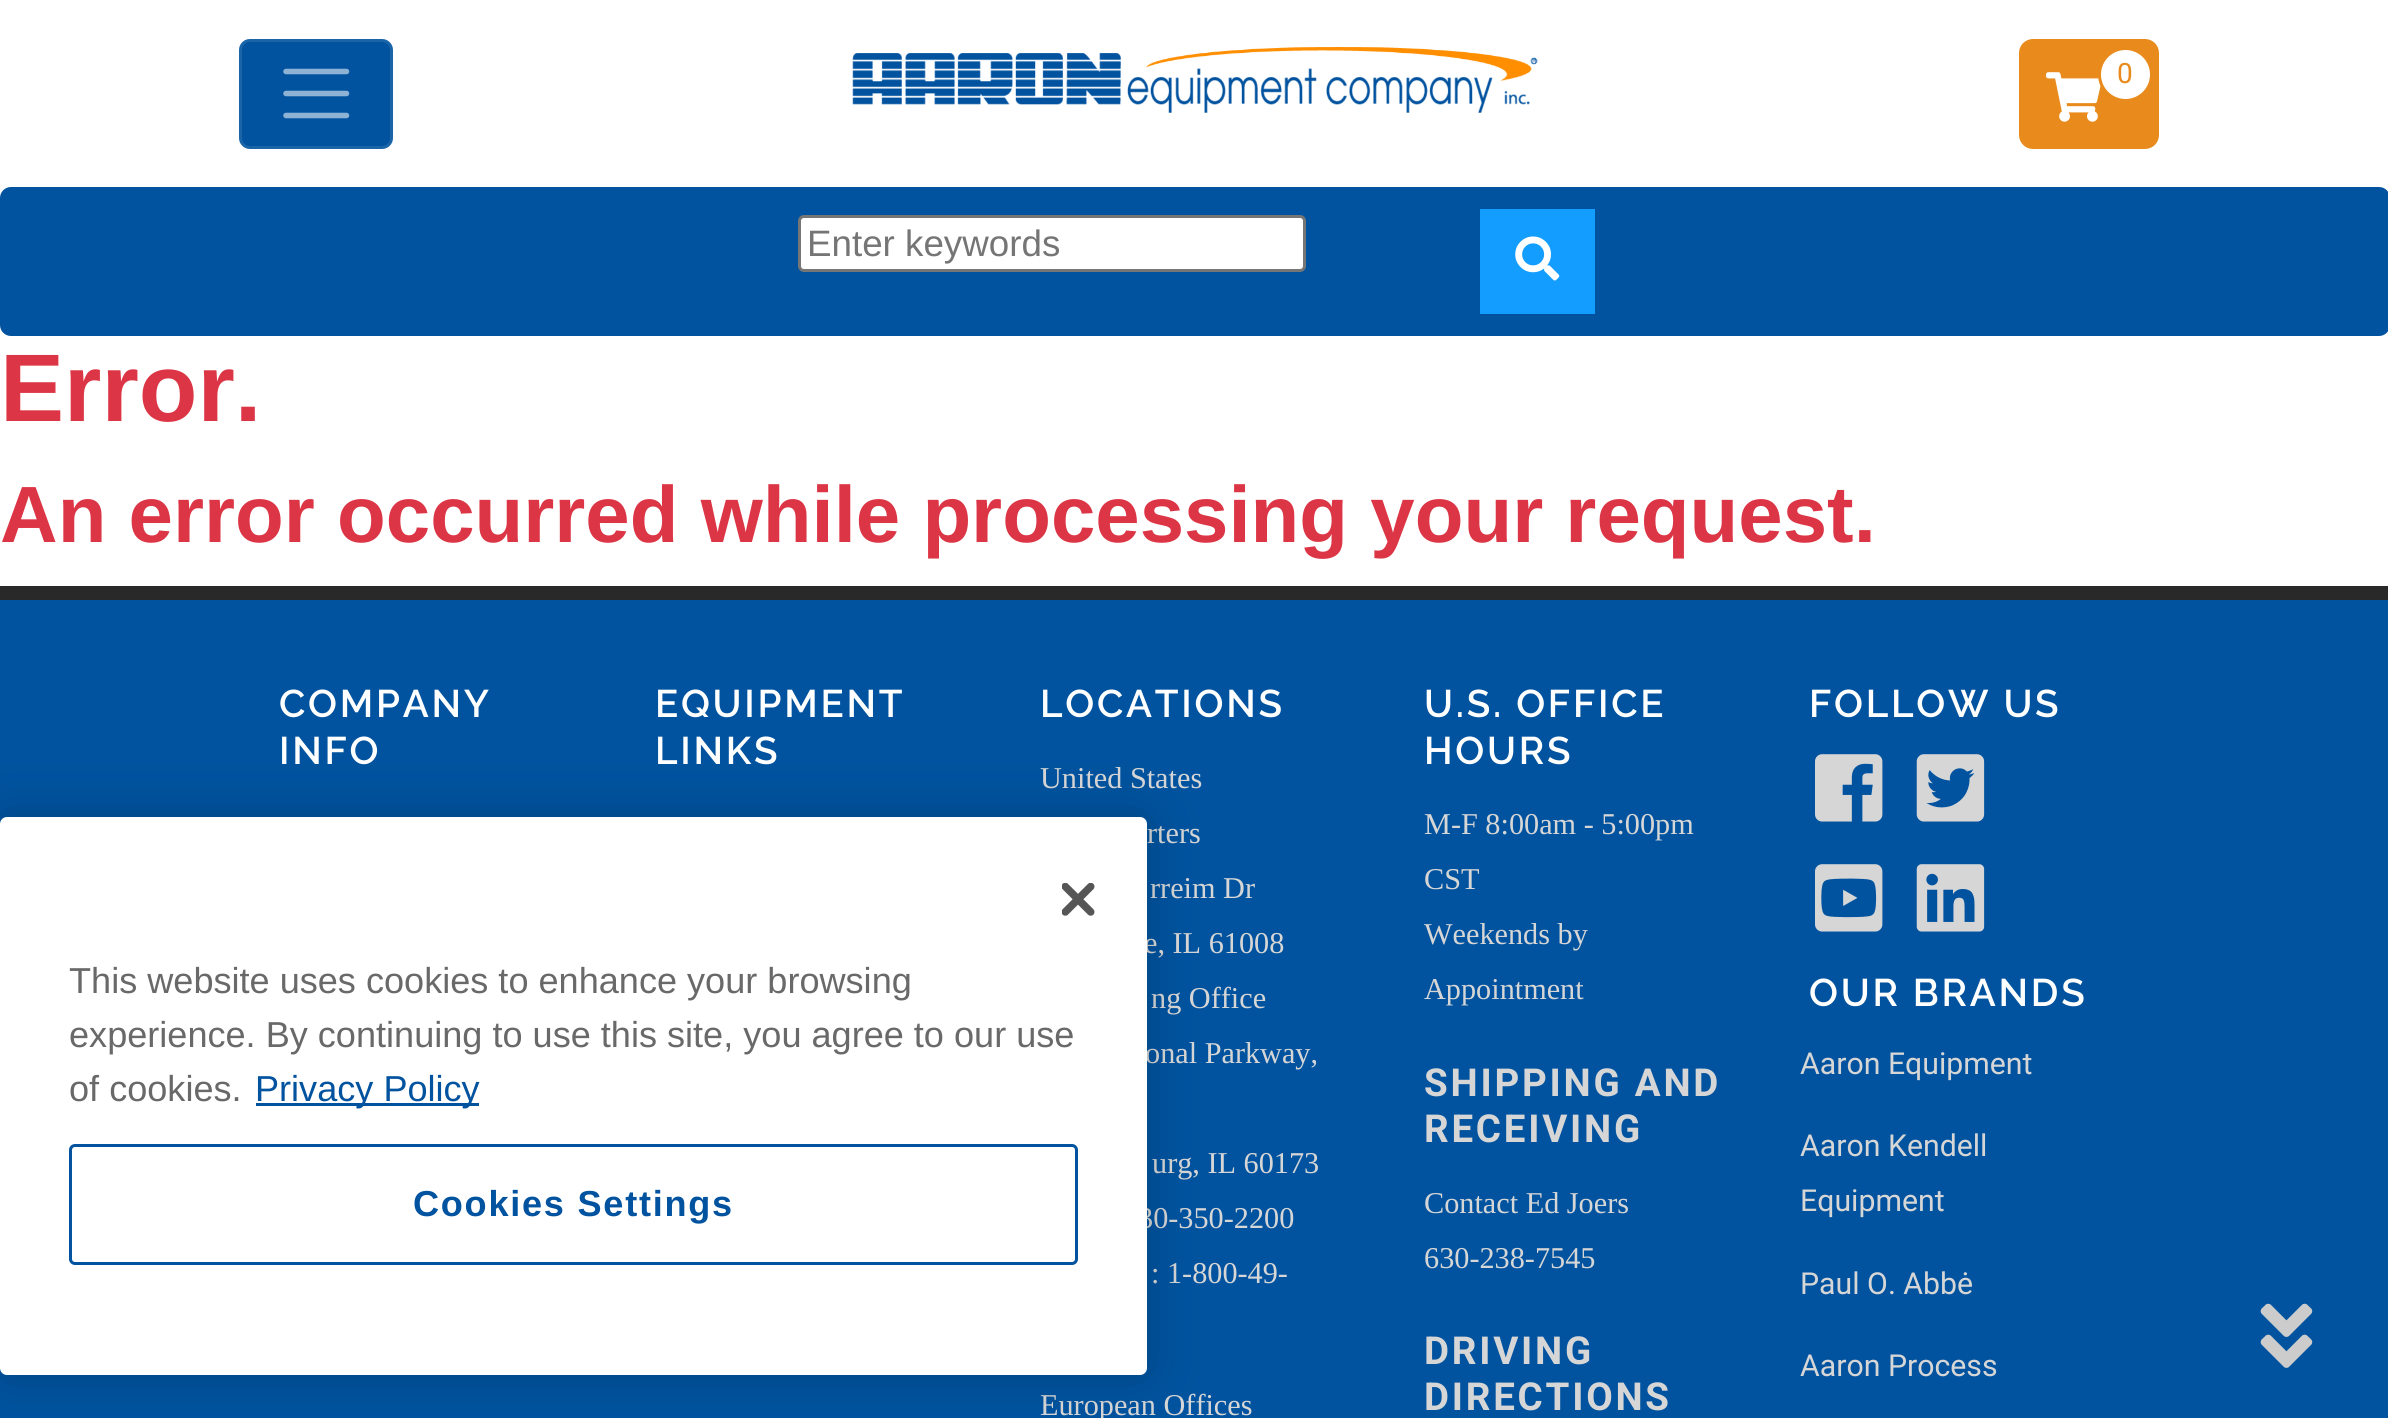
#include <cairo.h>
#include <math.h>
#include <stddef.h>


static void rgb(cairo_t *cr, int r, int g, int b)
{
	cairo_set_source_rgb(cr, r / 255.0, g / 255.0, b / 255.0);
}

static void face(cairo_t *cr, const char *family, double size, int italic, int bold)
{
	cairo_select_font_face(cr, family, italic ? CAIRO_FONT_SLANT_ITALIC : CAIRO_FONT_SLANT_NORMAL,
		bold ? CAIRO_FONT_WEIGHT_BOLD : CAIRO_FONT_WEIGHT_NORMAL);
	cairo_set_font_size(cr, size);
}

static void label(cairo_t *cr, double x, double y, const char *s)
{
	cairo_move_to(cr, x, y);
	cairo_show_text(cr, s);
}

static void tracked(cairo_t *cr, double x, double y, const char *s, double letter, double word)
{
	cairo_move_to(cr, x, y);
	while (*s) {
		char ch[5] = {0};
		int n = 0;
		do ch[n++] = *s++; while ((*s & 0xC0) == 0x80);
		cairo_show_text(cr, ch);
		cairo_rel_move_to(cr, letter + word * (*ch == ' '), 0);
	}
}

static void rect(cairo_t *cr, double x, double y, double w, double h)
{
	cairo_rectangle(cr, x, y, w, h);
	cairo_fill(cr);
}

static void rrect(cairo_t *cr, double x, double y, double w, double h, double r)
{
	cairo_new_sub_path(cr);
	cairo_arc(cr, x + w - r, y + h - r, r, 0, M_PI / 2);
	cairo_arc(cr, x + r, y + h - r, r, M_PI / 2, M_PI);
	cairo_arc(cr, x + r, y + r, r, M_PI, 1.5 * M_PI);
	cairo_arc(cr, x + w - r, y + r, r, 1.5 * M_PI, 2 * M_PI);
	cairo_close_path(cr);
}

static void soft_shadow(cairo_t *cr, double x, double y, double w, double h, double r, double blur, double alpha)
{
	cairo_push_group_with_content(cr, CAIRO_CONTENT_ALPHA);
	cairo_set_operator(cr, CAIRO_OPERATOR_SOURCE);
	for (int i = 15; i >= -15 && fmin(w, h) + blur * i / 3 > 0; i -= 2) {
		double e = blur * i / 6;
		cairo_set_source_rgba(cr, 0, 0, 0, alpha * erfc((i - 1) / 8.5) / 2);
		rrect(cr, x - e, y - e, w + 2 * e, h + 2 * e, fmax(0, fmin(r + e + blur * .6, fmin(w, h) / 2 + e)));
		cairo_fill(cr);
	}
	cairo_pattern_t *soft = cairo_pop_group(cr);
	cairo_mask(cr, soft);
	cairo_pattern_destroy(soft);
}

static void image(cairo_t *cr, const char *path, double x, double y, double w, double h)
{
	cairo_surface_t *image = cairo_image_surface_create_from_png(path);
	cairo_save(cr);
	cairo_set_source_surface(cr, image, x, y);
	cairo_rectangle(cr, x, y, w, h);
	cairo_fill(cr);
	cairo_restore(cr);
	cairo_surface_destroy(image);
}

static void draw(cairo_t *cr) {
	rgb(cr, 255, 255, 255);
	cairo_paint(cr);
	image(cr, "image0.png", 852, 47, 686, 66);
	rgb(cr, 233, 139, 28);
	rrect(cr, 2019, 39, 140, 110, 14);
	cairo_fill(cr);
	image(cr, "image1.png", 2046, 72, 55, 50);
	rgb(cr, 255, 255, 255);
	cairo_arc(cr, 2125.5, 74.5, 26, 0, 2 * M_PI);
	cairo_fill_preserve(cr);
	rgb(cr, 233, 139, 28);
	cairo_set_line_width(cr, 3);
	cairo_stroke(cr);
	face(cr, "Roboto", 28, 0, 0);
	label(cr, 2117, 83, "0");
	rgb(cr, 1, 83, 159);
	rrect(cr, 0, 187, 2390, 149, 11);
	cairo_fill(cr);
	rrect(cr, 239, 39, 154, 110, 11);
	cairo_fill(cr);
	rrect(cr, 240.5, 40.5, 151, 107, 9.5);
	cairo_set_source_rgba(cr, 1, 1, 1, 0.1);
	cairo_stroke(cr);
	cairo_new_path(cr);
	cairo_move_to(cr, 286, 71.5);
	cairo_line_to(cr, 346.5, 71.5);
	cairo_move_to(cr, 286, 93.5);
	cairo_line_to(cr, 346.5, 93.5);
	cairo_move_to(cr, 286, 115.5);
	cairo_line_to(cr, 346.5, 115.5);
	rgb(cr, 141, 178, 212);
	cairo_set_line_width(cr, 5.5);
	cairo_set_line_cap(cr, CAIRO_LINE_CAP_ROUND);
	cairo_stroke(cr);
	rgb(cr, 255, 255, 255);
	rrect(cr, 799.5, 216.5, 505, 54, 4.5);
	cairo_fill_preserve(cr);
	rgb(cr, 118, 118, 118);
	cairo_set_line_width(cr, 3);
	cairo_set_line_cap(cr, CAIRO_LINE_CAP_BUTT);
	cairo_stroke(cr);
	face(cr, "Liberation Sans", 36.75, 0, 0);
	rgb(cr, 117, 117, 117);
	label(cr, 807, 256, "Enter keywords");
	rgb(cr, 18, 157, 255);
	rect(cr, 1480, 209, 115, 105);
	image(cr, "image2.png", 1515, 236, 45, 45);
	rgb(cr, 1, 83, 159);
	rect(cr, 0, 600, 2388, 818);
	image(cr, "image3.png", 2260, 1303, 53, 65);
	face(cr, "Liberation Sans", 96, 0, 1);
	rgb(cr, 220, 53, 69);
	label(cr, 0, 421, "Error.");
	face(cr, "Liberation Sans", 79.8, 0, 1);
	label(cr, 0, 542, "An error occurred while processing your request.");
	rgb(cr, 41, 41, 41);
	rect(cr, 0, 586, 2388, 14);
	face(cr, "Raleway SemiBold", 38.5, 0, 0);
	rgb(cr, 255, 255, 255);
	tracked(cr, 279, 717, "COMPANY", 2.75, 0);
	tracked(cr, 279, 764, "INFO", 2.75, 0);
	tracked(cr, 655, 717, "EQUIPMENT", 2.75, 0);
	tracked(cr, 655, 764, "LINKS", 2.75, 0);
	tracked(cr, 1040, 717, "LOCATIONS", 2.75, 0);
	face(cr, "Liberation Serif", 30.25, 0, 0);
	rgb(cr, 214, 214, 214);
	label(cr, 1040, 788, "United States");
	label(cr, 1147, 843, "rters");
	label(cr, 1150, 898, "rreim Dr");
	label(cr, 1144, 953, "e, IL 61008");
	label(cr, 1151, 1008, "ng Office");
	label(cr, 1145, 1063, "onal Parkway,");
	label(cr, 1152, 1173, "urg, IL 60173");
	label(cr, 1138, 1228, "30-350-2200");
	label(cr, 1151, 1283, ": 1-800-49-");
	label(cr, 1040, 1415, "European Offices");
	face(cr, "Raleway SemiBold", 38.5, 0, 0);
	rgb(cr, 255, 255, 255);
	tracked(cr, 1424, 717, "U.S. OFFICE", 2.75, 0);
	tracked(cr, 1424, 764, "HOURS", 2.75, 0);
	face(cr, "Liberation Serif", 30.25, 0, 0);
	rgb(cr, 214, 214, 214);
	label(cr, 1424, 834, "M-F 8:00am - 5:00pm");
	label(cr, 1424, 889, "CST");
	label(cr, 1424, 944, "Weekends by");
	label(cr, 1424, 999, "Appointment");
	face(cr, "Roboto", 38.5, 0, 1);
	tracked(cr, 1424, 1096, "SHIPPING AND", 2.75, 0);
	tracked(cr, 1424, 1142, "RECEIVING", 2.75, 0);
	face(cr, "Liberation Serif", 30.25, 0, 0);
	label(cr, 1424, 1213, "Contact Ed Joers");
	label(cr, 1424, 1268, "630-238-7545");
	face(cr, "Roboto", 38.5, 0, 1);
	tracked(cr, 1424, 1364, "DRIVING", 2.75, 0);
	tracked(cr, 1424, 1410, "DIRECTIONS", 2.75, 0);
	face(cr, "Raleway SemiBold", 38.5, 0, 0);
	rgb(cr, 255, 255, 255);
	tracked(cr, 1809, 717, "FOLLOW US", 2.75, 0);
	image(cr, "image4.png", 1815, 754, 68, 68);
	image(cr, "image5.png", 1916, 754, 69, 68);
	image(cr, "image6.png", 1815, 864, 68, 68);
	image(cr, "image7.png", 1916, 864, 69, 68);
	tracked(cr, 1809, 1006, "OUR BRANDS", 2.75, 0);
	face(cr, "Roboto", 30.25, 0, 0);
	rgb(cr, 214, 214, 214);
	label(cr, 1800, 1074, "Aaron Equipment");
	label(cr, 1800, 1156, "Aaron Kendell");
	label(cr, 1800, 1211, "Equipment");
	label(cr, 1800, 1294, "Paul O. Abbė");
	label(cr, 1800, 1376, "Aaron Process");
	rgb(cr, 0, 0, 0);
	soft_shadow(cr, 0, 817, 1147, 558, 7, 25, 0.2);
	rgb(cr, 255, 255, 255);
	rrect(cr, 0, 817, 1147, 558, 7);
	cairo_fill(cr);
	image(cr, "image8.png", 1062, 883, 33, 33);
	face(cr, "Liberation Sans", 36.1, 0, 0);
	rgb(cr, 105, 105, 105);
	label(cr, 69, 993, "This website uses cookies to enhance your browsing");
	label(cr, 69, 1047, "experience. By continuing to use this site, you agree to our use");
	label(cr, 69, 1101, "of cookies.");
	rgb(cr, 1, 83, 159);
	rect(cr, 256, 1103, 223, 3);
	label(cr, 255, 1101, "Privacy Policy");
	rrect(cr, 70.5, 1145.5, 1006, 118, 4.5);
	cairo_stroke(cr);
	face(cr, "Liberation Sans", 36.1, 0, 1);
	tracked(cr, 413, 1216, "Cookies Settings", 1.75, 0);
}

int main(void) {
	cairo_surface_t *surface = cairo_image_surface_create(CAIRO_FORMAT_RGB24, 2388, 1418);
	cairo_t *cr = cairo_create(surface);
	cairo_font_options_t *options = cairo_font_options_create();
	cairo_font_options_set_hint_metrics(options, CAIRO_HINT_METRICS_OFF);
	cairo_font_options_set_hint_style(options, CAIRO_HINT_STYLE_NONE);
	cairo_set_font_options(cr, options);
	cairo_set_miter_limit(cr, 4);
	draw(cr);
	cairo_surface_write_to_png(surface, "render.png");
	cairo_font_options_destroy(options);
	cairo_destroy(cr);
	cairo_surface_destroy(surface);
	return 0;
}
